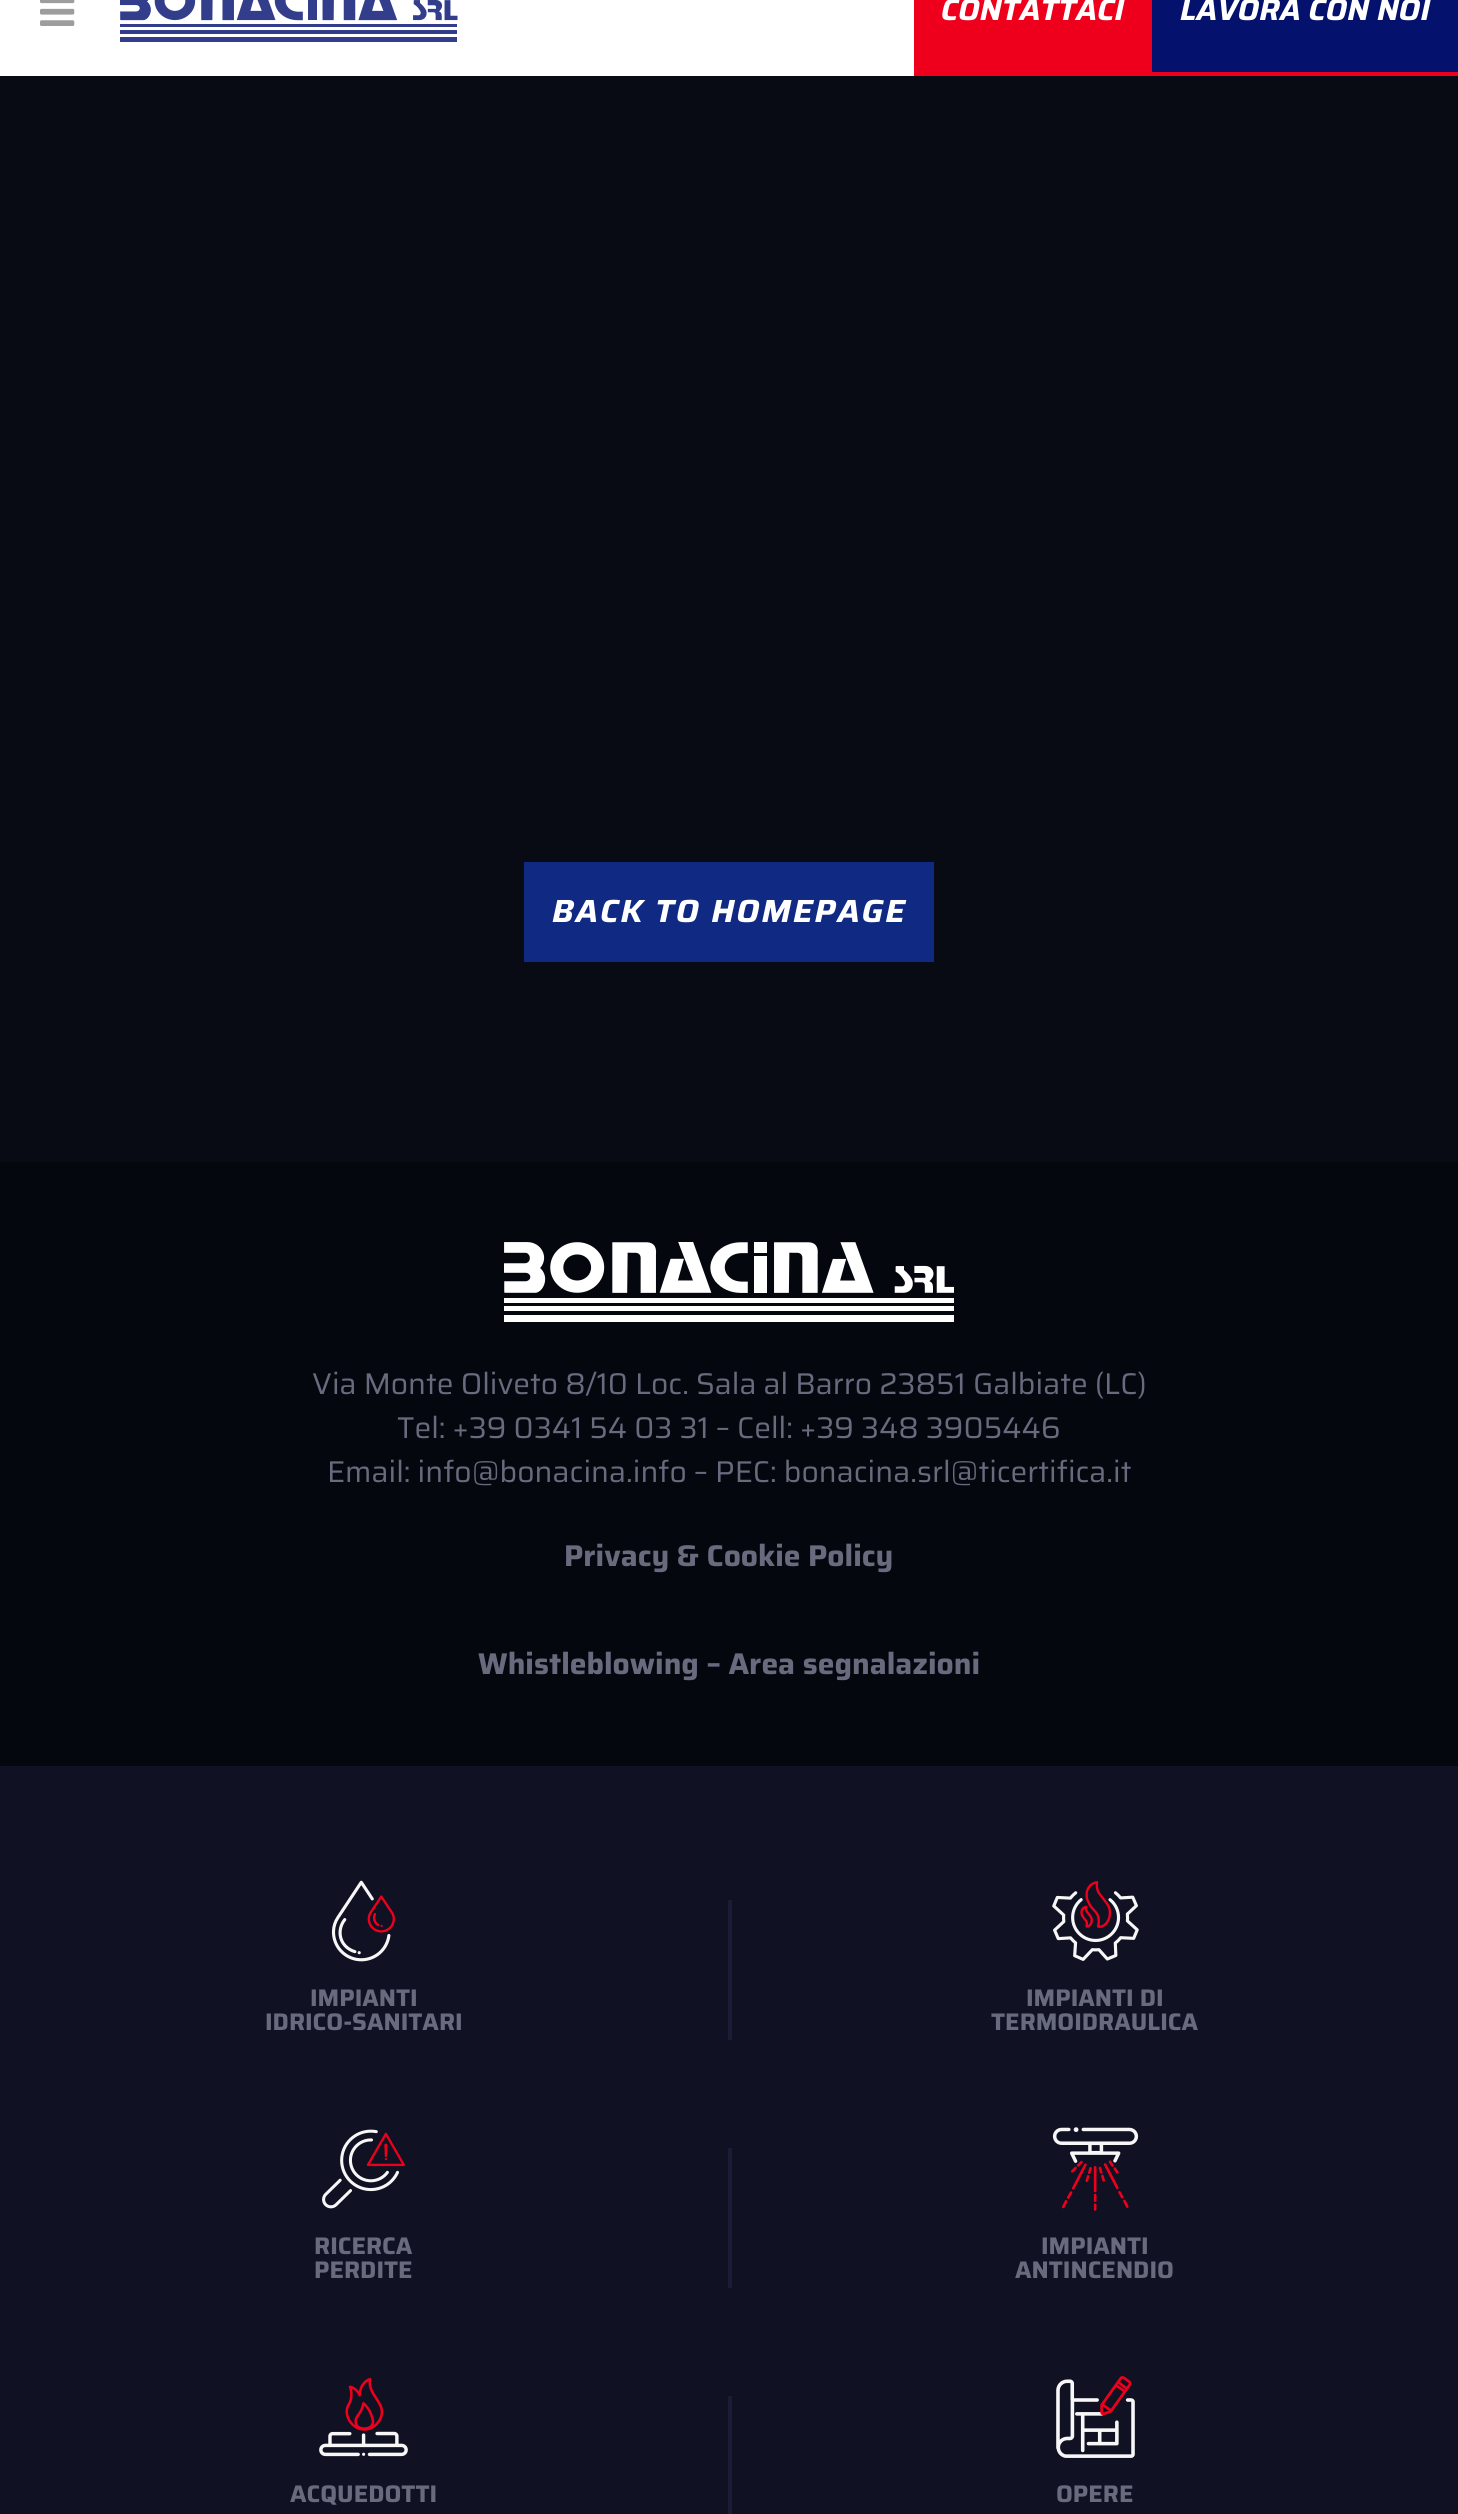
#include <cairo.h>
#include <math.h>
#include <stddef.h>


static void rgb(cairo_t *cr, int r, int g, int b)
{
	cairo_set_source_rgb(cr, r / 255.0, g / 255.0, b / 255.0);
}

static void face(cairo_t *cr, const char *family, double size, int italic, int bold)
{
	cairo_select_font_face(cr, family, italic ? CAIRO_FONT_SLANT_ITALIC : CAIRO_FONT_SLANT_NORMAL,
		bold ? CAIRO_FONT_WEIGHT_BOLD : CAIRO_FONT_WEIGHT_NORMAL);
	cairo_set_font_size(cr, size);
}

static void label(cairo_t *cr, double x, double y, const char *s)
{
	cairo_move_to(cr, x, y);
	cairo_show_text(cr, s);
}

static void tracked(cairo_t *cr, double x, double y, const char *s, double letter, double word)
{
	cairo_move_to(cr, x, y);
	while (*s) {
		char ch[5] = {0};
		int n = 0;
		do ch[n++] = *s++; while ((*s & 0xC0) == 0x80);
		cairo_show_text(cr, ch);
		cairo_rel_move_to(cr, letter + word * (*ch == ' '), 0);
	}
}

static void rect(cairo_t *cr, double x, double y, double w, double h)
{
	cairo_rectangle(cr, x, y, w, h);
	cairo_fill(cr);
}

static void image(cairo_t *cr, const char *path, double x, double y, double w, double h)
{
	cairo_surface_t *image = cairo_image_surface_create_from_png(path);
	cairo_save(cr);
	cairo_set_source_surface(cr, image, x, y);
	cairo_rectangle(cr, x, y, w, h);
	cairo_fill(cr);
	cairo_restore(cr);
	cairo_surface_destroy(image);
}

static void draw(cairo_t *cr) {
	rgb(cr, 8, 10, 20);
	cairo_paint(cr);
	rgb(cr, 255, 255, 255);
	rect(cr, 0, 0, 914, 76);
	image(cr, "image0.png", 40, 0, 35, 26);
	image(cr, "image1.png", 120, 0, 338, 42);
	rgb(cr, 238, 0, 28);
	rect(cr, 914, 0, 238, 76);
	face(cr, "Saira", 30, 1, 1);
	rgb(cr, 255, 255, 255);
	label(cr, 941, 20, "CONTATTACI");
	rgb(cr, 4, 18, 109);
	rect(cr, 1152, 0, 306, 72);
	rgb(cr, 238, 0, 28);
	rect(cr, 1152, 72, 306, 4);
	rgb(cr, 255, 255, 255);
	label(cr, 1180, 20, "LAVORA CON NOI");
	rgb(cr, 16, 42, 131);
	rect(cr, 524, 862, 410, 100);
	face(cr, "Saira", 32, 1, 1);
	rgb(cr, 255, 255, 255);
	tracked(cr, 552, 922, "BACK TO HOMEPAGE", 2, 0);
	rgb(cr, 5, 7, 14);
	rect(cr, 0, 1162, 1458, 604);
	image(cr, "image2.png", 504, 1242, 450, 80);
	face(cr, "Saira", 30, 0, 0);
	rgb(cr, 104, 107, 126);
	label(cr, 312, 1394, "Via Monte Oliveto 8/10 Loc. Sala al Barro 23851 Galbiate (LC)");
	label(cr, 397, 1438, "Tel: +39 0341 54 03 31 – Cell: +39 348 3905446");
	label(cr, 327, 1482, "Email: info@bonacina.info – PEC: bonacina.srl@ticertifica.it");
	face(cr, "Saira", 30, 0, 1);
	label(cr, 564, 1566, "Privacy & Cookie Policy");
	label(cr, 478, 1674, "Whistleblowing – Area segnalazioni");
	rgb(cr, 17, 17, 36);
	rect(cr, 0, 1766, 1458, 748);
	image(cr, "image3.png", 331, 1880, 64, 82);
	face(cr, "Saira", 24, 0, 1);
	rgb(cr, 104, 107, 126);
	label(cr, 310, 2006, "IMPIANTI");
	label(cr, 265, 2030, "IDRICO-SANITARI");
	rgb(cr, 25, 30, 54);
	rect(cr, 728, 1900, 4, 140);
	image(cr, "image4.png", 1052, 1881, 87, 80);
	rgb(cr, 104, 107, 126);
	label(cr, 1026, 2006, "IMPIANTI DI");
	label(cr, 991, 2030, "TERMOIDRAULICA");
	image(cr, "image5.png", 322, 2129, 83, 80);
	label(cr, 314, 2254, "RICERCA");
	label(cr, 314, 2278, "PERDITE");
	rgb(cr, 25, 30, 54);
	rect(cr, 728, 2148, 4, 140);
	image(cr, "image6.png", 1052, 2127, 87, 84);
	rgb(cr, 104, 107, 126);
	label(cr, 1041, 2254, "IMPIANTI");
	label(cr, 1015, 2278, "ANTINCENDIO");
	image(cr, "image7.png", 319, 2377, 89, 80);
	label(cr, 290, 2502, "ACQUEDOTTI");
	rgb(cr, 25, 30, 54);
	rect(cr, 728, 2396, 4, 118);
	image(cr, "image8.png", 1056, 2376, 79, 82);
	rgb(cr, 104, 107, 126);
	label(cr, 1056, 2502, "OPERE");
}

int main(void) {
	cairo_surface_t *surface = cairo_image_surface_create(CAIRO_FORMAT_RGB24, 1458, 2514);
	cairo_t *cr = cairo_create(surface);
	cairo_font_options_t *options = cairo_font_options_create();
	cairo_font_options_set_hint_metrics(options, CAIRO_HINT_METRICS_OFF);
	cairo_font_options_set_hint_style(options, CAIRO_HINT_STYLE_NONE);
	cairo_set_font_options(cr, options);
	cairo_set_miter_limit(cr, 4);
	draw(cr);
	cairo_surface_write_to_png(surface, "render.png");
	cairo_font_options_destroy(options);
	cairo_destroy(cr);
	cairo_surface_destroy(surface);
	return 0;
}
